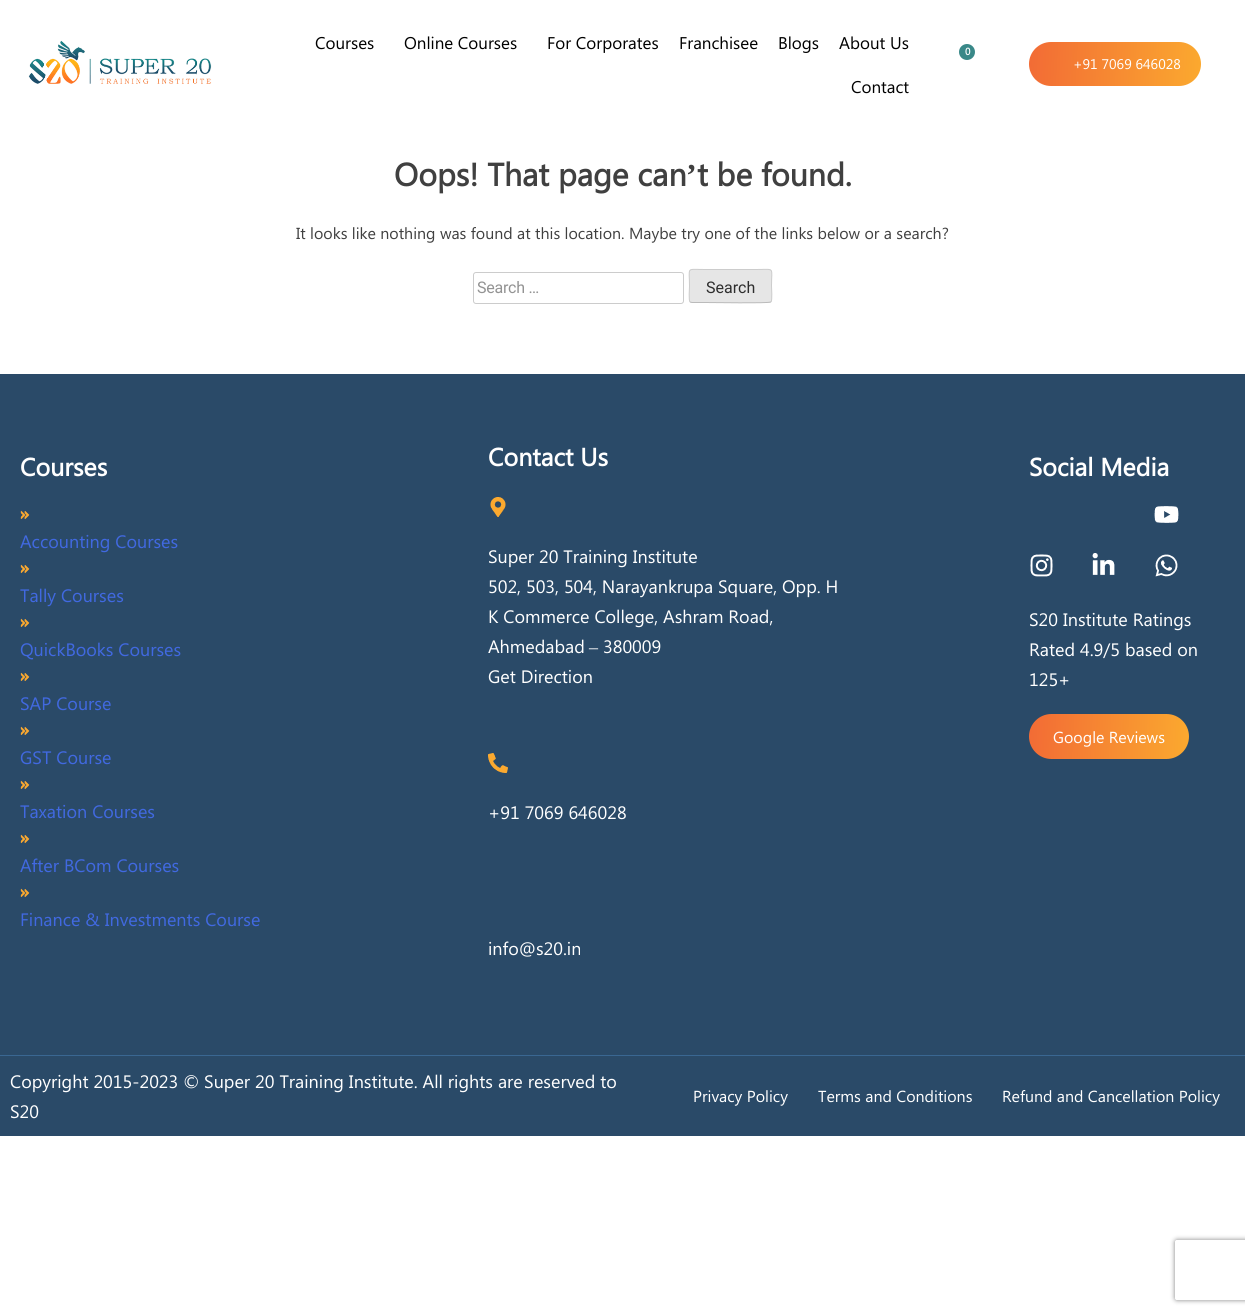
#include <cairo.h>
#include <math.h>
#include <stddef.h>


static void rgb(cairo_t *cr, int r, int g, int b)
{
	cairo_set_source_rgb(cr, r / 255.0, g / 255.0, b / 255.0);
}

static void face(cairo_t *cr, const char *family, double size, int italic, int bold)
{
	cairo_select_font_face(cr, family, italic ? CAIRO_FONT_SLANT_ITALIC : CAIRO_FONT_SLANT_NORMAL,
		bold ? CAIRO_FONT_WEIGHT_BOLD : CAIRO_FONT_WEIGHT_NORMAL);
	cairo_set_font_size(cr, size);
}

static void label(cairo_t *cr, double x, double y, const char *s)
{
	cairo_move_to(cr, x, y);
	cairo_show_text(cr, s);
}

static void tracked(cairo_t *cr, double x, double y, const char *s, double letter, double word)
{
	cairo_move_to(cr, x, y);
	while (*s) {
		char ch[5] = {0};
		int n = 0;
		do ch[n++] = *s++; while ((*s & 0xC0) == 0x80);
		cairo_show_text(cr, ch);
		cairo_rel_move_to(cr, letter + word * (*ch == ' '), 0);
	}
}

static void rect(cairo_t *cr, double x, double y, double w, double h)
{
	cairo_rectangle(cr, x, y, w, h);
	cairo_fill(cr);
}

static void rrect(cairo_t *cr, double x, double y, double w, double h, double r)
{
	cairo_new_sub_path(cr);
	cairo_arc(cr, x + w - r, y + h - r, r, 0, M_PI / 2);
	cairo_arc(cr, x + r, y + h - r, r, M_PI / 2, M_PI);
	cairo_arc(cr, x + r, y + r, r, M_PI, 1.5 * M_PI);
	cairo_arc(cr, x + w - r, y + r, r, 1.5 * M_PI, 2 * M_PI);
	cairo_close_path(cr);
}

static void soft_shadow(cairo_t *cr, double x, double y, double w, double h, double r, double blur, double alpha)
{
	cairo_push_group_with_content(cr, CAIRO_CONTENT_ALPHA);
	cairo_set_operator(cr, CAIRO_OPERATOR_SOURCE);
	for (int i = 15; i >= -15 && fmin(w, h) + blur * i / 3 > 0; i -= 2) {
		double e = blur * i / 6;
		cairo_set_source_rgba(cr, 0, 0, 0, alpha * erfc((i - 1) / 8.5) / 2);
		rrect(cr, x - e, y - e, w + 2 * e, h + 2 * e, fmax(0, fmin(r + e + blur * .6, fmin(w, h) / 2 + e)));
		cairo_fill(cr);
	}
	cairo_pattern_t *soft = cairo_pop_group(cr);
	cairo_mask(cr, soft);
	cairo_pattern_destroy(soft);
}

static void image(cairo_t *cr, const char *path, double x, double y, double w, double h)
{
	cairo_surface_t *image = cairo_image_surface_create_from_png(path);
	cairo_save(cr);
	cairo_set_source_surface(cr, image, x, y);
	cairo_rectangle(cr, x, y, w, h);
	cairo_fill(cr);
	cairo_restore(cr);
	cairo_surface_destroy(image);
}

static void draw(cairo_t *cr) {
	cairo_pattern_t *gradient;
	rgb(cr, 255, 255, 255);
	cairo_paint(cr);
	image(cr, "image0.png", 28, 40, 184, 44);
	face(cr, "Segoe UI", 17, 0, 0);
	rgb(cr, 0, 0, 0);
	label(cr, 315, 49, "Courses");
	label(cr, 404, 49, "Online Courses");
	label(cr, 547, 49, "For Corporates");
	label(cr, 679, 49, "Franchisee");
	label(cr, 778, 49, "Blogs");
	label(cr, 839, 49, "About Us");
	label(cr, 851, 93, "Contact");
	rgb(cr, 57, 136, 136);
	cairo_new_path(cr);
	cairo_arc(cr, 967, 52, 8, 0, 2 * M_PI);
	cairo_fill(cr);
	face(cr, "Segoe UI", 10, 0, 1);
	rgb(cr, 255, 255, 255);
	label(cr, 965, 55, "0");
	gradient = cairo_pattern_create_linear(1028, 59, 1202, 69);
	cairo_pattern_add_color_stop_rgba(gradient, 0, 0.949, 0.42, 0.208, 1);
	cairo_pattern_add_color_stop_rgba(gradient, 1, 0.984, 0.663, 0.184, 1);
	cairo_set_source(cr, gradient);
	cairo_pattern_destroy(gradient);
	rrect(cr, 1029, 42, 172, 44, 22);
	cairo_fill(cr);
	face(cr, "Segoe UI", 14, 0, 0);
	rgb(cr, 255, 255, 255);
	label(cr, 1073, 69, "+91 7069 646028");
	face(cr, "Segoe UI", 32, 0, 1);
	rgb(cr, 64, 64, 64);
	label(cr, 394, 186, "Oops! That page can");
	face(cr, "Liberation Serif", 32, 0, 1);
	label(cr, 686, 186, "’");
	face(cr, "Segoe UI", 32, 0, 1);
	label(cr, 697, 186, "t be found.");
	face(cr, "Segoe UI", 16, 0, 0);
	label(cr, 296, 239, "It looks like nothing was found at this location. Maybe try one of the links below or a search?");
	rrect(cr, 473.5, 272.5, 210, 31, 2.5);
	rgb(cr, 204, 204, 204);
	cairo_set_line_width(cr, 1);
	cairo_stroke(cr);
	face(cr, "Roboto", 16, 0, 0);
	rgb(cr, 147, 147, 147);
	tracked(cr, 477, 293, "Search …", -0.25, 0);
	rgb(cr, 230, 230, 230);
	rrect(cr, 689, 269, 83, 34, 3);
	cairo_fill(cr);
	cairo_new_path(cr);
	cairo_move_to(cr, 771, 302);
	cairo_line_to(cr, 770.5, 302);
	cairo_curve_to(cr, 768.5, 303.5, 712, 302.5, 705, 302.5);
	cairo_line_to(cr, 692, 302.5);
	cairo_line_to(cr, 690, 302);
	rgb(cr, 187, 187, 187);
	cairo_stroke(cr);
	cairo_new_path(cr);
	cairo_move_to(cr, 690, 302);
	cairo_curve_to(cr, 688.5, 300, 689.5, 288.5, 689.5, 286);
	cairo_curve_to(cr, 689.5, 266.5, 685.5, 269.5, 705, 269.5);
	cairo_line_to(cr, 756, 269.5);
	cairo_curve_to(cr, 775.5, 269.5, 771.5, 266.5, 771.5, 286);
	cairo_curve_to(cr, 771.5, 288.5, 772.5, 300, 771, 302);
	rgb(cr, 204, 204, 204);
	cairo_stroke(cr);
	rgb(cr, 46, 46, 46);
	label(cr, 706, 293, "Search");
	rgb(cr, 42, 74, 104);
	rect(cr, 0, 374, 1245, 681);
	face(cr, "Segoe UI", 25, 0, 1);
	rgb(cr, 255, 255, 255);
	label(cr, 20, 476, "Courses");
	image(cr, "image1.png", 20, 510, 10, 9);
	face(cr, "Segoe UI", 18, 0, 0);
	rgb(cr, 65, 105, 225);
	label(cr, 20, 548, "Accounting Courses");
	image(cr, "image1.png", 20, 564, 10, 9);
	label(cr, 20, 602, "Tally Courses");
	image(cr, "image1.png", 20, 618, 10, 9);
	label(cr, 20, 656, "QuickBooks Courses");
	image(cr, "image1.png", 20, 672, 10, 9);
	label(cr, 20, 710, "SAP Course");
	image(cr, "image1.png", 20, 726, 10, 9);
	label(cr, 20, 764, "GST Course");
	image(cr, "image1.png", 20, 780, 10, 9);
	label(cr, 20, 818, "Taxation Courses");
	image(cr, "image1.png", 20, 834, 10, 9);
	label(cr, 20, 872, "After BCom Courses");
	image(cr, "image1.png", 20, 888, 10, 9);
	label(cr, 20, 926, "Finance & Investments Course");
	face(cr, "Segoe UI", 25, 0, 1);
	rgb(cr, 255, 255, 255);
	label(cr, 488, 466, "Contact Us");
	image(cr, "image2.png", 490, 497, 16, 20);
	face(cr, "Segoe UI", 18, 0, 0);
	label(cr, 488, 563, "Super 20 Training Institute");
	label(cr, 488, 593, "502, 503, 504, Narayankrupa Square, Opp. H");
	label(cr, 488, 623, "K Commerce College, Ashram Road,");
	label(cr, 488, 653, "Ahmedabad");
	face(cr, "Liberation Serif", 18, 0, 0);
	label(cr, 589, 653, "–");
	face(cr, "Segoe UI", 18, 0, 0);
	label(cr, 603, 653, "380009");
	label(cr, 488, 683, "Get Direction");
	image(cr, "image3.png", 488, 753, 20, 20);
	label(cr, 488, 819, "+91 7069 646028");
	label(cr, 488, 955, "info@s20.in");
	face(cr, "Segoe UI", 25, 0, 1);
	label(cr, 1029, 476, "Social Media");
	image(cr, "image4.png", 1154, 506, 25, 17);
	image(cr, "image5.png", 1030, 554, 23, 23);
	image(cr, "image6.png", 1092, 553, 23, 22);
	image(cr, "image7.png", 1155, 554, 23, 23);
	face(cr, "Segoe UI", 18, 0, 0);
	label(cr, 1029, 626, "S20 Institute Ratings");
	label(cr, 1029, 656, "Rated 4.9/5 based on");
	label(cr, 1029, 686, "125+");
	gradient = cairo_pattern_create_linear(1028, 732, 1190, 741);
	cairo_pattern_add_color_stop_rgba(gradient, 0, 0.949, 0.42, 0.208, 1);
	cairo_pattern_add_color_stop_rgba(gradient, 1, 0.984, 0.663, 0.184, 1);
	cairo_set_source(cr, gradient);
	cairo_pattern_destroy(gradient);
	rrect(cr, 1029, 714, 160, 45, 22.5);
	cairo_fill(cr);
	face(cr, "Segoe UI", 16, 0, 0);
	rgb(cr, 255, 255, 255);
	label(cr, 1053, 743, "Google Reviews");
	rgb(cr, 42, 74, 104);
	rect(cr, 0, 1056, 1245, 80);
	rgb(cr, 58, 103, 146);
	rect(cr, 0, 1055, 1245, 1);
	face(cr, "Segoe UI", 18, 0, 0);
	rgb(cr, 255, 255, 255);
	label(cr, 10, 1088, "Copyright 2015-2023 © Super 20 Training Institute. All rights are reserved to");
	label(cr, 10, 1118, "S20");
	face(cr, "Segoe UI", 16, 0, 0);
	label(cr, 693, 1102, "Privacy Policy");
	label(cr, 818, 1102, "Terms and Conditions");
	label(cr, 1002, 1102, "Refund and Cancellation Policy");
	cairo_save(cr);
	cairo_set_fill_rule(cr, CAIRO_FILL_RULE_EVEN_ODD);
	cairo_new_path(cr);
	cairo_move_to(cr, 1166, 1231);
	cairo_line_to(cr, 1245, 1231);
	cairo_line_to(cr, 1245, 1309);
	cairo_line_to(cr, 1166, 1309);
	cairo_close_path(cr);
	cairo_move_to(cr, 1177, 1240);
	cairo_line_to(cr, 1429, 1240);
	cairo_curve_to(cr, 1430, 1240, 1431, 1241, 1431, 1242);
	cairo_line_to(cr, 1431, 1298);
	cairo_curve_to(cr, 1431, 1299, 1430, 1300, 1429, 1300);
	cairo_line_to(cr, 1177, 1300);
	cairo_curve_to(cr, 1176, 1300, 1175, 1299, 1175, 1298);
	cairo_line_to(cr, 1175, 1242);
	cairo_curve_to(cr, 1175, 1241, 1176, 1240, 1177, 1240);
	cairo_close_path(cr);
	cairo_clip(cr);
	rgb(cr, 128, 128, 128);
	soft_shadow(cr, 1175, 1240, 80, 60, 2, 2.5, 1);
	cairo_restore(cr);
}

int main(void) {
	cairo_surface_t *surface = cairo_image_surface_create(CAIRO_FORMAT_RGB24, 1245, 1314);
	cairo_t *cr = cairo_create(surface);
	cairo_font_options_t *options = cairo_font_options_create();
	cairo_font_options_set_hint_metrics(options, CAIRO_HINT_METRICS_OFF);
	cairo_font_options_set_hint_style(options, CAIRO_HINT_STYLE_NONE);
	cairo_set_font_options(cr, options);
	cairo_set_miter_limit(cr, 4);
	draw(cr);
	cairo_surface_write_to_png(surface, "render.png");
	cairo_font_options_destroy(options);
	cairo_destroy(cr);
	cairo_surface_destroy(surface);
	return 0;
}
